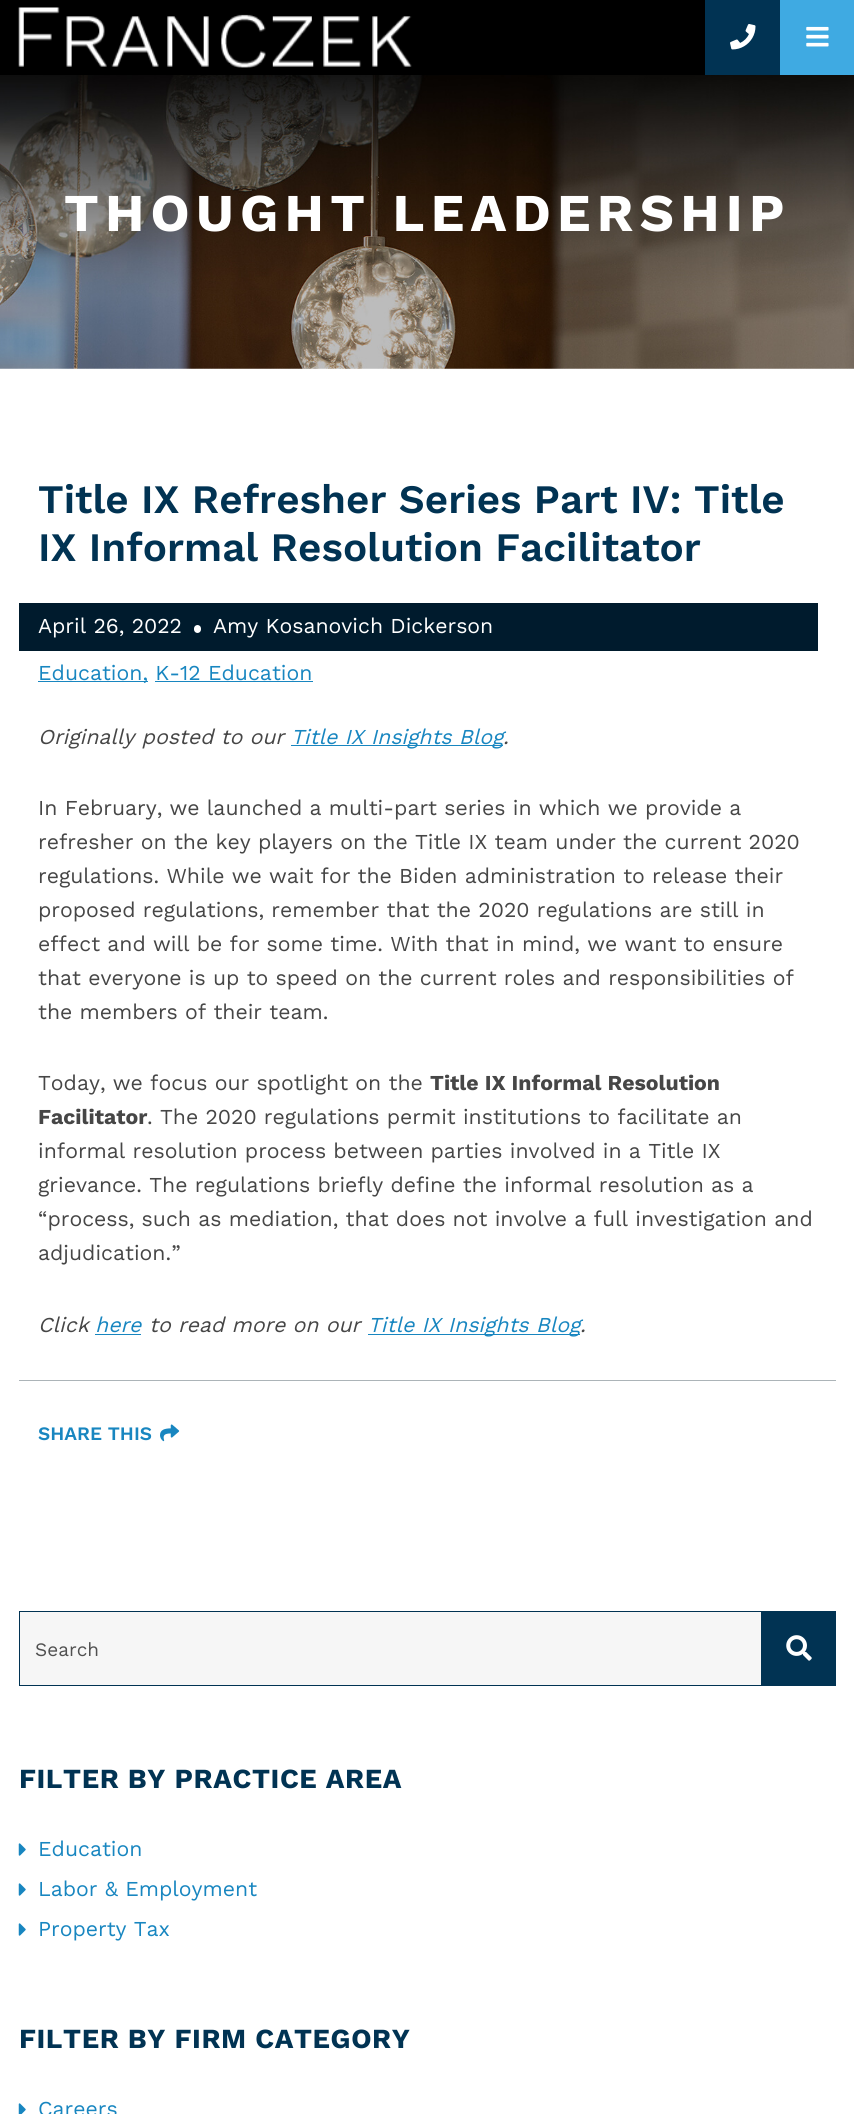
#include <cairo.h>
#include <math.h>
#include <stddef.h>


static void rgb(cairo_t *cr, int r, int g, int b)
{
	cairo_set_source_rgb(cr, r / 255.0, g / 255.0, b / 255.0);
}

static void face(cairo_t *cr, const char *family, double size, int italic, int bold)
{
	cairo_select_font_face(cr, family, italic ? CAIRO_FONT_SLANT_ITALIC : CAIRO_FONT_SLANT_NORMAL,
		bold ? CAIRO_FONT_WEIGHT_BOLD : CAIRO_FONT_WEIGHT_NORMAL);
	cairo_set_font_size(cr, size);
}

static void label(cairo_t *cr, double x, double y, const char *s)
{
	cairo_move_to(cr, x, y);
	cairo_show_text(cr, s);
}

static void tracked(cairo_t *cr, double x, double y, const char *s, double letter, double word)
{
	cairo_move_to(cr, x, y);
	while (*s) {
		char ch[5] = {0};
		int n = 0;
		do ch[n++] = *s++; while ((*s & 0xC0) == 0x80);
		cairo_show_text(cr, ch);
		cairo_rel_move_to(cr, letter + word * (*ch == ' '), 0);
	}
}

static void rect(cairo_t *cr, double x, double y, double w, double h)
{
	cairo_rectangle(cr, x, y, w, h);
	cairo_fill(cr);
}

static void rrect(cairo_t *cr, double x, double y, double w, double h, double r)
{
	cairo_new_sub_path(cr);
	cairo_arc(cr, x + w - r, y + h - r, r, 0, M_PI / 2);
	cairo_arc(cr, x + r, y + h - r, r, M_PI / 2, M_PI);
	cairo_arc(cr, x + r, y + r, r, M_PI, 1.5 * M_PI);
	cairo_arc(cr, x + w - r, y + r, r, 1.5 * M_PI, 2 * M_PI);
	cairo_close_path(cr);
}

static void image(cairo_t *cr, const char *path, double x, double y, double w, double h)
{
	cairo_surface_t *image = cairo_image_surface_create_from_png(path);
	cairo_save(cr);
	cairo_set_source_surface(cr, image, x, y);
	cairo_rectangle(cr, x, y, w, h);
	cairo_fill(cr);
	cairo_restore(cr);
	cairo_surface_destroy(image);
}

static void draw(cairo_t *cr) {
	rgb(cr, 255, 255, 255);
	cairo_paint(cr);
	rgb(cr, 0, 0, 0);
	rect(cr, 0, 0, 705, 75);
	image(cr, "image0.png", 18, 7, 394, 61);
	rgb(cr, 1, 51, 83);
	rect(cr, 705, 0, 75, 75);
	image(cr, "image1.png", 730, 24, 26, 26);
	rgb(cr, 63, 170, 226);
	rect(cr, 780, 0, 74, 75);
	image(cr, "image2.png", 806, 26, 23, 21);
	image(cr, "image3.png", 0, 75, 854, 294);
	face(cr, "Work Sans", 53.1, 0, 1);
	rgb(cr, 255, 255, 255);
	tracked(cr, 64, 231, "THOUGHT LEADERSHIP", 6.25, 0);
	face(cr, "Work Sans SemiBold", 40.4, 0, 0);
	rgb(cr, 1, 51, 83);
	label(cr, 38, 513, "Title IX Refresher Series Part IV: Title");
	label(cr, 38, 561, "IX Informal Resolution Facilitator");
	rgb(cr, 0, 27, 45);
	rect(cr, 19, 603, 799, 48);
	face(cr, "Work Sans", 21.25, 0, 0);
	rgb(cr, 255, 255, 255);
	label(cr, 38, 633, "April 26, 2022");
	rrect(cr, 194, 625, 7, 8, 3.5);
	cairo_fill(cr);
	label(cr, 213, 633, "Amy Kosanovich Dickerson");
	rgb(cr, 24, 134, 192);
	rect(cr, 38, 681, 110, 1);
	label(cr, 38, 680, "Education, K-12 Education");
	rect(cr, 155, 681, 158, 1);
	face(cr, "Work Sans", 21.25, 1, 0);
	rgb(cr, 70, 70, 70);
	label(cr, 38, 744, "Originally posted to our");
	rgb(cr, 24, 134, 192);
	rect(cr, 291, 745, 212, 1);
	label(cr, 291, 744, "Title IX Insights Blog");
	rgb(cr, 70, 70, 70);
	label(cr, 503, 744, ".");
	face(cr, "Work Sans", 21.25, 0, 0);
	label(cr, 38, 815, "In February, we launched a multi-part series in which we provide a");
	label(cr, 38, 849, "refresher on the key players on the Title IX team under the current 2020");
	label(cr, 38, 883, "regulations. While we wait for the Biden administration to release their");
	label(cr, 38, 917, "proposed regulations, remember that the 2020 regulations are still in");
	label(cr, 38, 951, "effect and will be for some time. With that in mind, we want to ensure");
	label(cr, 38, 985, "that everyone is up to speed on the current roles and responsibilities of");
	label(cr, 38, 1019, "the members of their team.");
	label(cr, 38, 1090, "Today, we focus our spotlight on the");
	face(cr, "Work Sans", 21.25, 0, 1);
	label(cr, 430, 1090, "Title IX Informal Resolution");
	label(cr, 38, 1124, "Facilitator");
	face(cr, "Work Sans", 21.25, 0, 0);
	label(cr, 147, 1124, ". The 2020 regulations permit institutions to facilitate an");
	label(cr, 38, 1158, "informal resolution process between parties involved in a Title IX");
	label(cr, 38, 1192, "grievance. The regulations briefly define the informal resolution as a");
	label(cr, 38, 1226, "“process, such as mediation, that does not involve a full investigation and");
	label(cr, 38, 1260, "adjudication.”");
	face(cr, "Work Sans", 21.25, 1, 0);
	label(cr, 38, 1332, "Click");
	rgb(cr, 24, 134, 192);
	label(cr, 95, 1332, "here");
	rect(cr, 95, 1334, 46, 1);
	rgb(cr, 70, 70, 70);
	label(cr, 149, 1332, "to read more on our");
	rgb(cr, 24, 134, 192);
	rect(cr, 368, 1334, 212, 1);
	label(cr, 368, 1332, "Title IX Insights Blog");
	rgb(cr, 70, 70, 70);
	label(cr, 580, 1332, ".");
	rgb(cr, 172, 180, 184);
	rect(cr, 19, 1380, 817, 1);
	face(cr, "Work Sans SemiBold", 19, 0, 0);
	rgb(cr, 24, 134, 192);
	label(cr, 38, 1440, "SHARE THIS");
	image(cr, "image4.png", 160, 1424, 20, 18);
	rgb(cr, 246, 246, 246);
	rect(cr, 20, 1612, 741, 73);
	cairo_rectangle(cr, 19.5, 1611.5, 816, 74);
	rgb(cr, 1, 51, 83);
	cairo_set_line_width(cr, 1);
	cairo_stroke(cr);
	face(cr, "Work Sans", 19, 0, 0);
	rgb(cr, 80, 80, 80);
	label(cr, 35, 1656, "Search");
	rgb(cr, 1, 51, 83);
	rect(cr, 761, 1612, 74, 73);
	image(cr, "image5.png", 786, 1635, 26, 26);
	face(cr, "Work Sans", 27.6, 0, 1);
	tracked(cr, 19, 1788, "FILTER BY PRACTICE AREA", 0.6, 0);
	image(cr, "image6.png", 18, 1843, 8, 13);
	face(cr, "Work Sans", 21.25, 0, 0);
	rgb(cr, 24, 134, 192);
	label(cr, 38, 1856, "Education");
	image(cr, "image6.png", 18, 1883, 8, 13);
	label(cr, 38, 1896, "Labor & Employment");
	image(cr, "image6.png", 18, 1923, 8, 13);
	label(cr, 38, 1936, "Property Tax");
	face(cr, "Work Sans", 27.6, 0, 1);
	rgb(cr, 1, 51, 83);
	tracked(cr, 19, 2048, "FILTER BY FIRM CATEGORY", 0.6, 0);
	image(cr, "image7.png", 18, 2103, 8, 11);
	face(cr, "Work Sans", 21.25, 0, 0);
	rgb(cr, 24, 134, 192);
	label(cr, 38, 2116, "Careers");
}

int main(void) {
	cairo_surface_t *surface = cairo_image_surface_create(CAIRO_FORMAT_RGB24, 854, 2114);
	cairo_t *cr = cairo_create(surface);
	cairo_font_options_t *options = cairo_font_options_create();
	cairo_font_options_set_hint_metrics(options, CAIRO_HINT_METRICS_OFF);
	cairo_font_options_set_hint_style(options, CAIRO_HINT_STYLE_NONE);
	cairo_set_font_options(cr, options);
	cairo_set_miter_limit(cr, 4);
	draw(cr);
	cairo_surface_write_to_png(surface, "render.png");
	cairo_font_options_destroy(options);
	cairo_destroy(cr);
	cairo_surface_destroy(surface);
	return 0;
}
